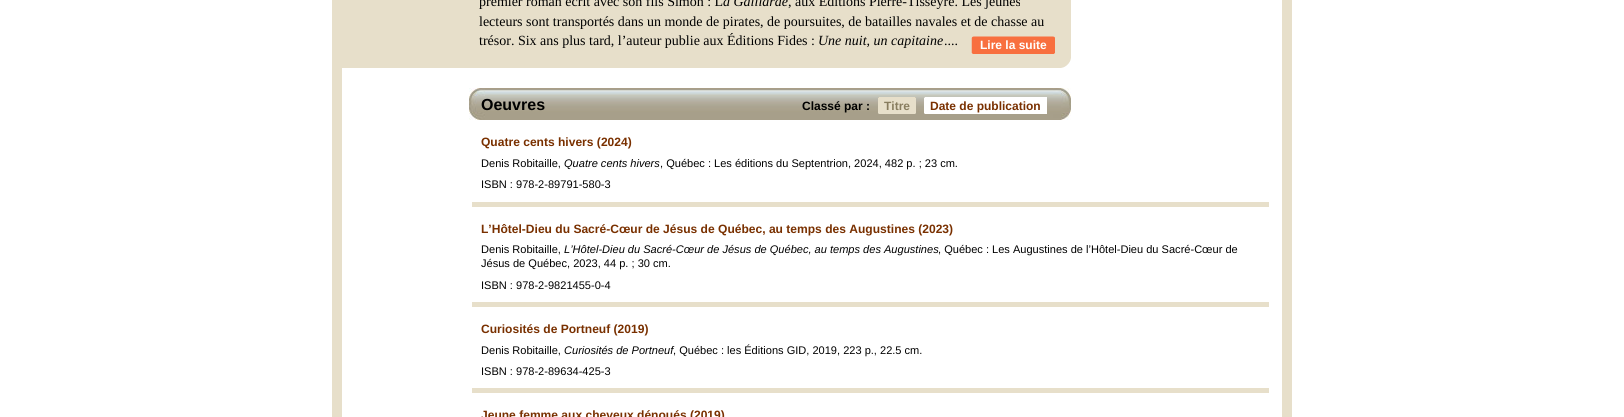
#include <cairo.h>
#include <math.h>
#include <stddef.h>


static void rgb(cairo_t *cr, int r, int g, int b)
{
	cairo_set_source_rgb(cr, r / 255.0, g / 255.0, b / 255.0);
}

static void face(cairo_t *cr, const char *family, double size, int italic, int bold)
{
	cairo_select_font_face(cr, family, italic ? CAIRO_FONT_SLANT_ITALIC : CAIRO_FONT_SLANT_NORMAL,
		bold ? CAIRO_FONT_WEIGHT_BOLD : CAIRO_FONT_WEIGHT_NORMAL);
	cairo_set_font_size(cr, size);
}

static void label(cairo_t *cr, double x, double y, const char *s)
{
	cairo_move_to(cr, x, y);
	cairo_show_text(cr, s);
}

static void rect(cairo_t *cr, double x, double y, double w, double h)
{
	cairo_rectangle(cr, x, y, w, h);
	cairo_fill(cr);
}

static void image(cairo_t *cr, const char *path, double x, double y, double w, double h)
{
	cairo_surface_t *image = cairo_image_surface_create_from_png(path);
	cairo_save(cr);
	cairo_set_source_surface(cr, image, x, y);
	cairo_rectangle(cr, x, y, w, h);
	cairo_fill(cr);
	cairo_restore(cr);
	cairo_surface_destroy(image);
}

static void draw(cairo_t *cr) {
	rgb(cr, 255, 255, 255);
	cairo_paint(cr);
	rgb(cr, 231, 223, 202);
	rect(cr, 1282, 0, 10, 417);
	rect(cr, 332, 0, 10, 417);
	rect(cr, 342, 0, 729, 54);
	face(cr, "Liberation Serif", 14, 0, 0);
	rgb(cr, 0, 0, 0);
	label(cr, 479, 6, "premier roman écrit avec son fils Simon : L");
	face(cr, "Liberation Serif", 14, 1, 0);
	label(cr, 723, 6, "a Gaillarde");
	face(cr, "Liberation Serif", 14, 0, 0);
	label(cr, 788, 6, ", aux Éditions Pierre-Tisseyre. Les jeunes");
	label(cr, 479, 26, "lecteurs sont transportés dans un monde de pirates, de poursuites, de batailles navales et de chasse au");
	label(cr, 479, 45, "trésor. Six ans plus tard, l’auteur publie aux Éditions Fides :");
	face(cr, "Liberation Serif", 14, 1, 0);
	label(cr, 818, 45, "Une nuit, un capitaine");
	face(cr, "Liberation Serif", 14, 0, 0);
	label(cr, 944, 45, "....");
	image(cr, "image0.png", 971, 36, 84, 18);
	face(cr, "Liberation Sans", 12, 0, 1);
	rgb(cr, 255, 255, 255);
	label(cr, 980, 49, "Lire la suite");
	image(cr, "image1.png", 342, 54, 729, 14);
	image(cr, "image2.png", 469, 88, 602, 32);
	face(cr, "Liberation Sans", 16, 0, 1);
	rgb(cr, 0, 0, 0);
	label(cr, 481, 110, "Oeuvres");
	face(cr, "Liberation Sans", 12, 0, 1);
	label(cr, 802, 110, "Classé par :");
	rgb(cr, 231, 223, 202);
	rect(cr, 879, 97, 36, 17);
	image(cr, "image3.png", 878, 97, 1, 17);
	rgb(cr, 136, 125, 95);
	label(cr, 884, 110, "Titre");
	image(cr, "image3.png", 915, 97, 1, 17);
	rgb(cr, 255, 255, 255);
	rect(cr, 925, 97, 122, 17);
	image(cr, "image4.png", 924, 97, 1, 17);
	rgb(cr, 121, 48, 0);
	label(cr, 930, 110, "Date de publication");
	rgb(cr, 231, 223, 202);
	rect(cr, 472, 202, 797, 5);
	face(cr, "Liberation Sans", 12.05, 0, 1);
	rgb(cr, 121, 48, 0);
	label(cr, 481, 146, "Quatre cents hivers (2024)");
	face(cr, "Liberation Sans", 11.05, 0, 0);
	rgb(cr, 0, 0, 0);
	label(cr, 481, 167, "Denis Robitaille,");
	face(cr, "Liberation Sans", 11.05, 1, 0);
	label(cr, 564, 167, "Quatre cents hivers");
	face(cr, "Liberation Sans", 11.05, 0, 0);
	label(cr, 660, 167, ", Québec : Les éditions du Septentrion, 2024, 482 p. ; 23 cm.");
	label(cr, 481, 188, "ISBN : 978-2-89791-580-3");
	rgb(cr, 231, 223, 202);
	rect(cr, 472, 302, 797, 5);
	face(cr, "Liberation Sans", 12.05, 0, 1);
	rgb(cr, 121, 48, 0);
	label(cr, 481, 233, "L’Hôtel-Dieu du Sacré-Cœur de Jésus de Québec, au temps des Augustines (2023)");
	face(cr, "Liberation Sans", 11.05, 0, 0);
	rgb(cr, 0, 0, 0);
	label(cr, 481, 253, "Denis Robitaille,");
	face(cr, "Liberation Sans", 11.05, 1, 0);
	label(cr, 564, 253, "L’Hôtel-Dieu du Sacré-Cœur de Jésus de Québec, au temps des Augustines");
	face(cr, "Liberation Sans", 11.05, 0, 0);
	label(cr, 938, 253, ", Québec : Les Augustines de l’Hôtel-Dieu du Sacré-Cœur de");
	label(cr, 481, 267, "Jésus de Québec, 2023, 44 p. ; 30 cm.");
	label(cr, 481, 289, "ISBN : 978-2-9821455-0-4");
	rgb(cr, 231, 223, 202);
	rect(cr, 472, 388, 797, 5);
	face(cr, "Liberation Sans", 12.05, 0, 1);
	rgb(cr, 121, 48, 0);
	label(cr, 481, 333, "Curiosités de Portneuf (2019)");
	face(cr, "Liberation Sans", 11.05, 0, 0);
	rgb(cr, 0, 0, 0);
	label(cr, 481, 354, "Denis Robitaille,");
	face(cr, "Liberation Sans", 11.05, 1, 0);
	label(cr, 564, 354, "Curiosités de Portneuf");
	face(cr, "Liberation Sans", 11.05, 0, 0);
	label(cr, 673, 354, ", Québec : les Éditions GID, 2019, 223 p., 22.5 cm.");
	label(cr, 481, 375, "ISBN : 978-2-89634-425-3");
	face(cr, "Liberation Sans", 12.05, 0, 1);
	rgb(cr, 121, 48, 0);
	label(cr, 481, 419, "Jeune femme aux cheveux dénoués (2019)");
}

int main(void) {
	cairo_surface_t *surface = cairo_image_surface_create(CAIRO_FORMAT_RGB24, 1624, 417);
	cairo_t *cr = cairo_create(surface);
	cairo_font_options_t *options = cairo_font_options_create();
	cairo_font_options_set_hint_metrics(options, CAIRO_HINT_METRICS_OFF);
	cairo_font_options_set_hint_style(options, CAIRO_HINT_STYLE_NONE);
	cairo_set_font_options(cr, options);
	cairo_set_miter_limit(cr, 4);
	draw(cr);
	cairo_surface_write_to_png(surface, "render.png");
	cairo_font_options_destroy(options);
	cairo_destroy(cr);
	cairo_surface_destroy(surface);
	return 0;
}
